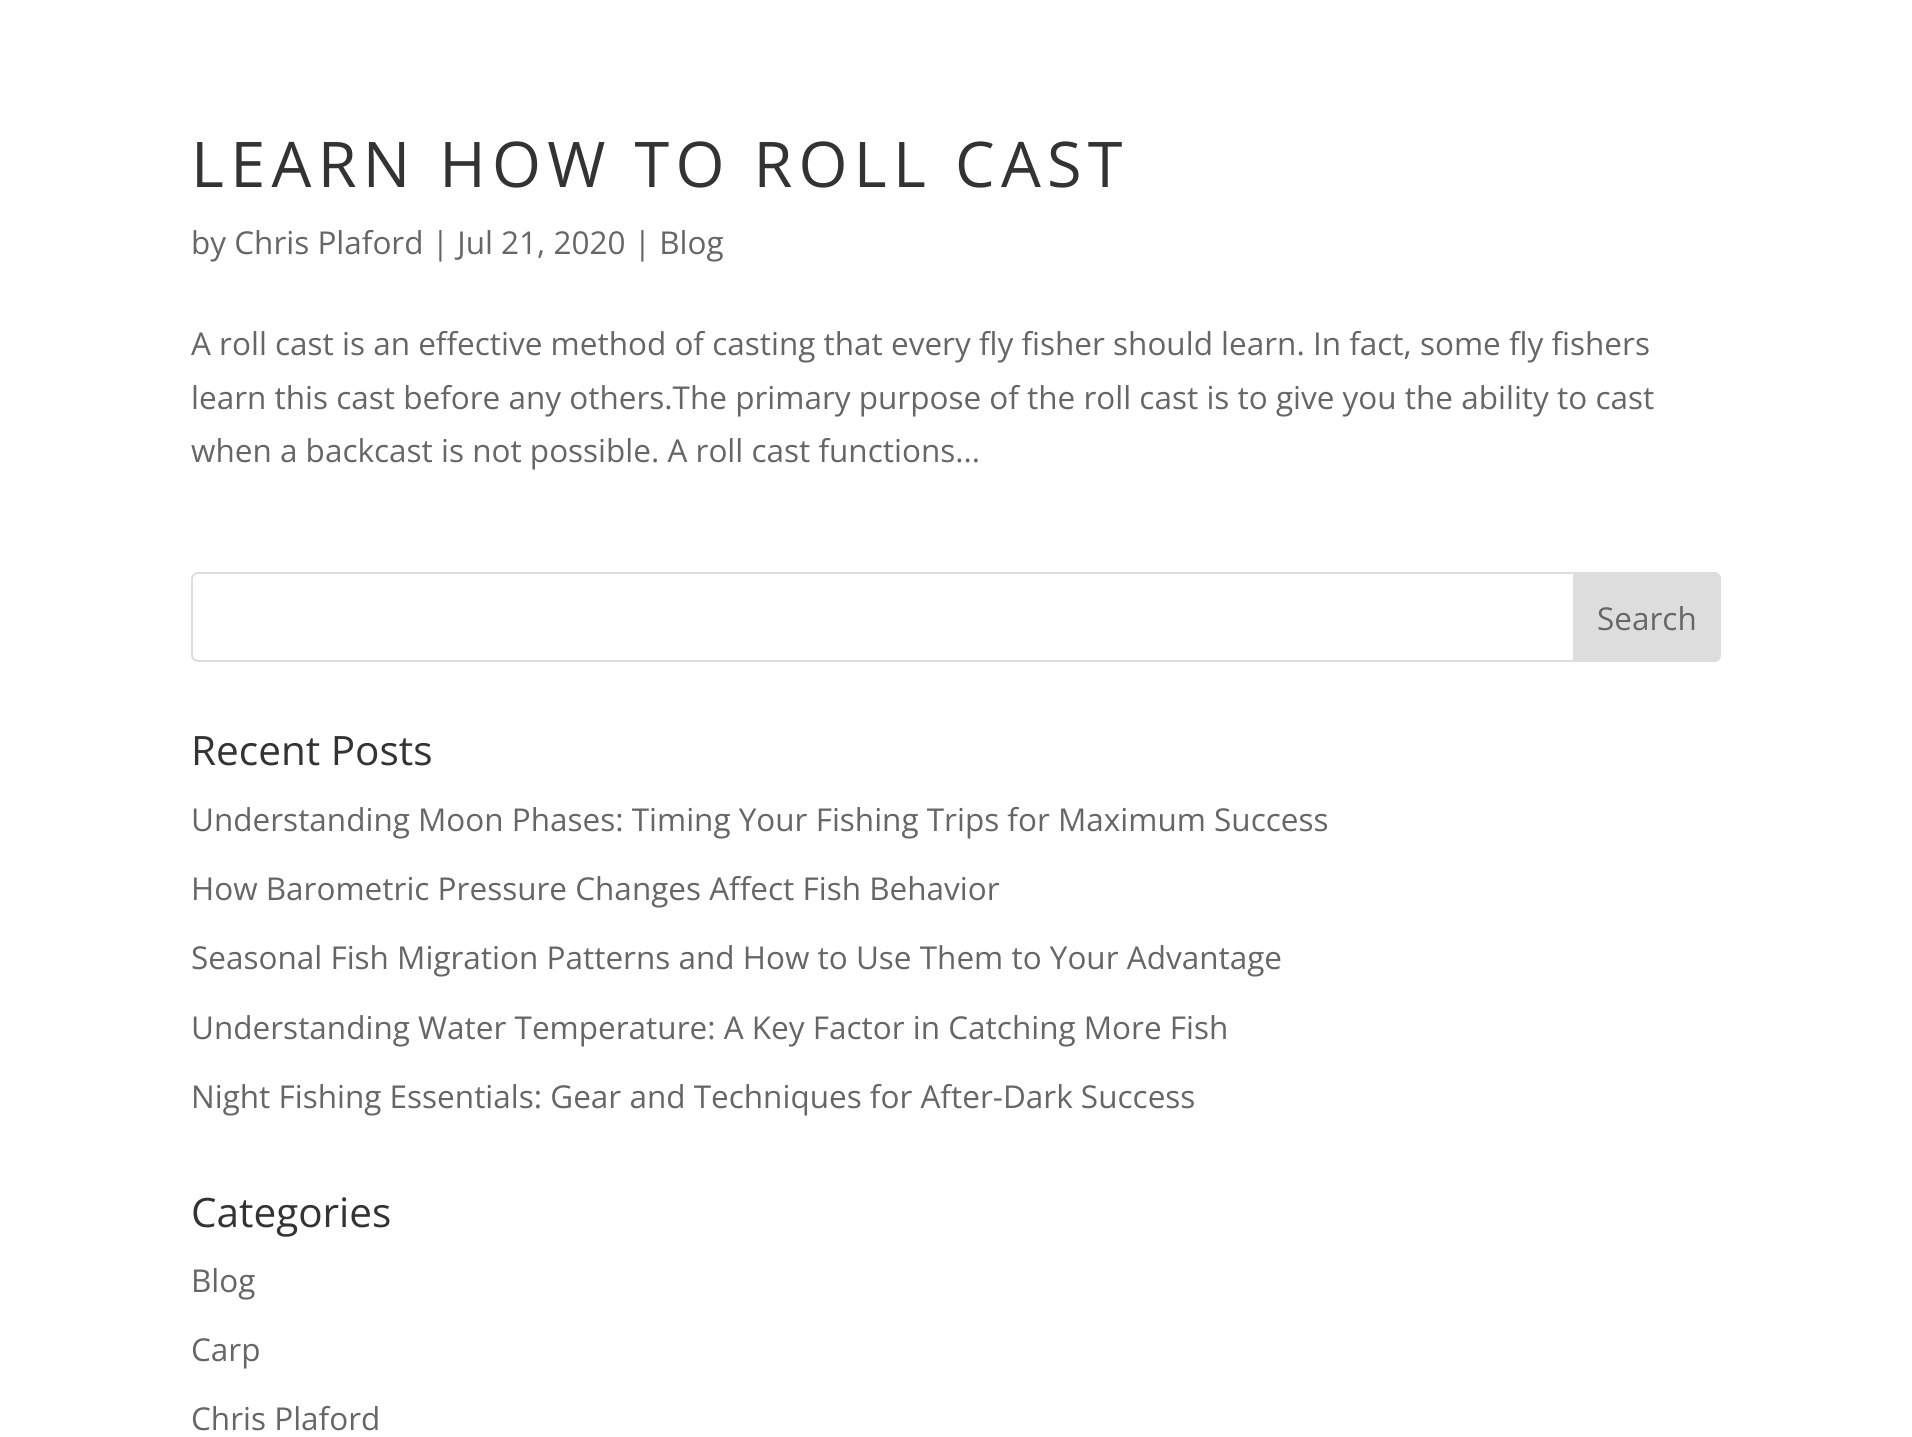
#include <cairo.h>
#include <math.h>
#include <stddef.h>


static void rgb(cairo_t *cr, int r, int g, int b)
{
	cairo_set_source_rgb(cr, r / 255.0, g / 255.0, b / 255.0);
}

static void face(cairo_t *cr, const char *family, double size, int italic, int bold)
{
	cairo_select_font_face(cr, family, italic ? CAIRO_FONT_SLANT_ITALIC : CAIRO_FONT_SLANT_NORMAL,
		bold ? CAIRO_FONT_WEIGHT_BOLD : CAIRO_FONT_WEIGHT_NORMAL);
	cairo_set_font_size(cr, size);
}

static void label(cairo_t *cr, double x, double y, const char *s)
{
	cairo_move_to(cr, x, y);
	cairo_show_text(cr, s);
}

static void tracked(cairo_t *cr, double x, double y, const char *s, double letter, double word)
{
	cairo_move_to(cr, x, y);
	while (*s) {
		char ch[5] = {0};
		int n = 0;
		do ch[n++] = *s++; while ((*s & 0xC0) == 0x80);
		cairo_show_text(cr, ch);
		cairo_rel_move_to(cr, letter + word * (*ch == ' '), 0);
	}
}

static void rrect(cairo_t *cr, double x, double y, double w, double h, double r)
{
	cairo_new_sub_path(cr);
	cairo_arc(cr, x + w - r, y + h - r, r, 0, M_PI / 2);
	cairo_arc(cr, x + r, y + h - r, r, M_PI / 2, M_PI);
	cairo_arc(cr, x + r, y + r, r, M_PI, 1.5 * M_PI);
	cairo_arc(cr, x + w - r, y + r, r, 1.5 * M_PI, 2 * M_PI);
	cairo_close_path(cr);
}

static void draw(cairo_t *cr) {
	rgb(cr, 255, 255, 255);
	cairo_paint(cr);
	face(cr, "Open Sans", 63, 0, 0);
	rgb(cr, 51, 51, 51);
	tracked(cr, 191, 187, "LEARN HOW TO ROLL CAST", 6.3, 0);
	face(cr, "Open Sans", 31.5, 0, 0);
	rgb(cr, 102, 102, 102);
	label(cr, 191, 254, "by Chris Plaford | Jul 21, 2020 | Blog");
	label(cr, 191, 355, "A roll cast is an effective method of casting that every fly fisher should learn. In fact, some fly fishers");
	label(cr, 191, 409, "learn this cast before any others.The primary purpose of the roll cast is to give you the ability to cast");
	label(cr, 191, 462, "when a backcast is not possible. A roll cast functions...");
	rrect(cr, 192, 573, 1528, 88, 6);
	rgb(cr, 221, 221, 221);
	cairo_stroke(cr);
	cairo_new_path(cr);
	cairo_move_to(cr, 1574, 573);
	cairo_line_to(cr, 1714, 573);
	cairo_curve_to(cr, 1717.5, 573, 1720, 575.5, 1720, 579);
	cairo_line_to(cr, 1720, 655);
	cairo_curve_to(cr, 1720, 658.5, 1717.5, 661, 1714, 661);
	cairo_line_to(cr, 1574, 661);
	cairo_close_path(cr);
	cairo_fill_preserve(cr);
	cairo_stroke(cr);
	rgb(cr, 102, 102, 102);
	label(cr, 1597, 630, "Search");
	face(cr, "Open Sans", 40.5, 0, 0);
	rgb(cr, 51, 51, 51);
	label(cr, 191, 765, "Recent Posts");
	face(cr, "Open Sans", 31.5, 0, 0);
	rgb(cr, 102, 102, 102);
	label(cr, 191, 831, "Understanding Moon Phases: Timing Your Fishing Trips for Maximum Success");
	label(cr, 191, 900, "How Barometric Pressure Changes Affect Fish Behavior");
	label(cr, 191, 969, "Seasonal Fish Migration Patterns and How to Use Them to Your Advantage");
	label(cr, 191, 1039, "Understanding Water Temperature: A Key Factor in Catching More Fish");
	label(cr, 191, 1108, "Night Fishing Essentials: Gear and Techniques for After-Dark Success");
	face(cr, "Open Sans", 40.5, 0, 0);
	rgb(cr, 51, 51, 51);
	label(cr, 191, 1227, "Categories");
	face(cr, "Open Sans", 31.5, 0, 0);
	rgb(cr, 102, 102, 102);
	label(cr, 191, 1292, "Blog");
	label(cr, 191, 1361, "Carp");
	label(cr, 191, 1430, "Chris Plaford");
}

int main(void) {
	cairo_surface_t *surface = cairo_image_surface_create(CAIRO_FORMAT_RGB24, 1912, 1437);
	cairo_t *cr = cairo_create(surface);
	cairo_font_options_t *options = cairo_font_options_create();
	cairo_font_options_set_hint_metrics(options, CAIRO_HINT_METRICS_OFF);
	cairo_font_options_set_hint_style(options, CAIRO_HINT_STYLE_NONE);
	cairo_set_font_options(cr, options);
	cairo_set_miter_limit(cr, 4);
	draw(cr);
	cairo_surface_write_to_png(surface, "render.png");
	cairo_font_options_destroy(options);
	cairo_destroy(cr);
	cairo_surface_destroy(surface);
	return 0;
}
